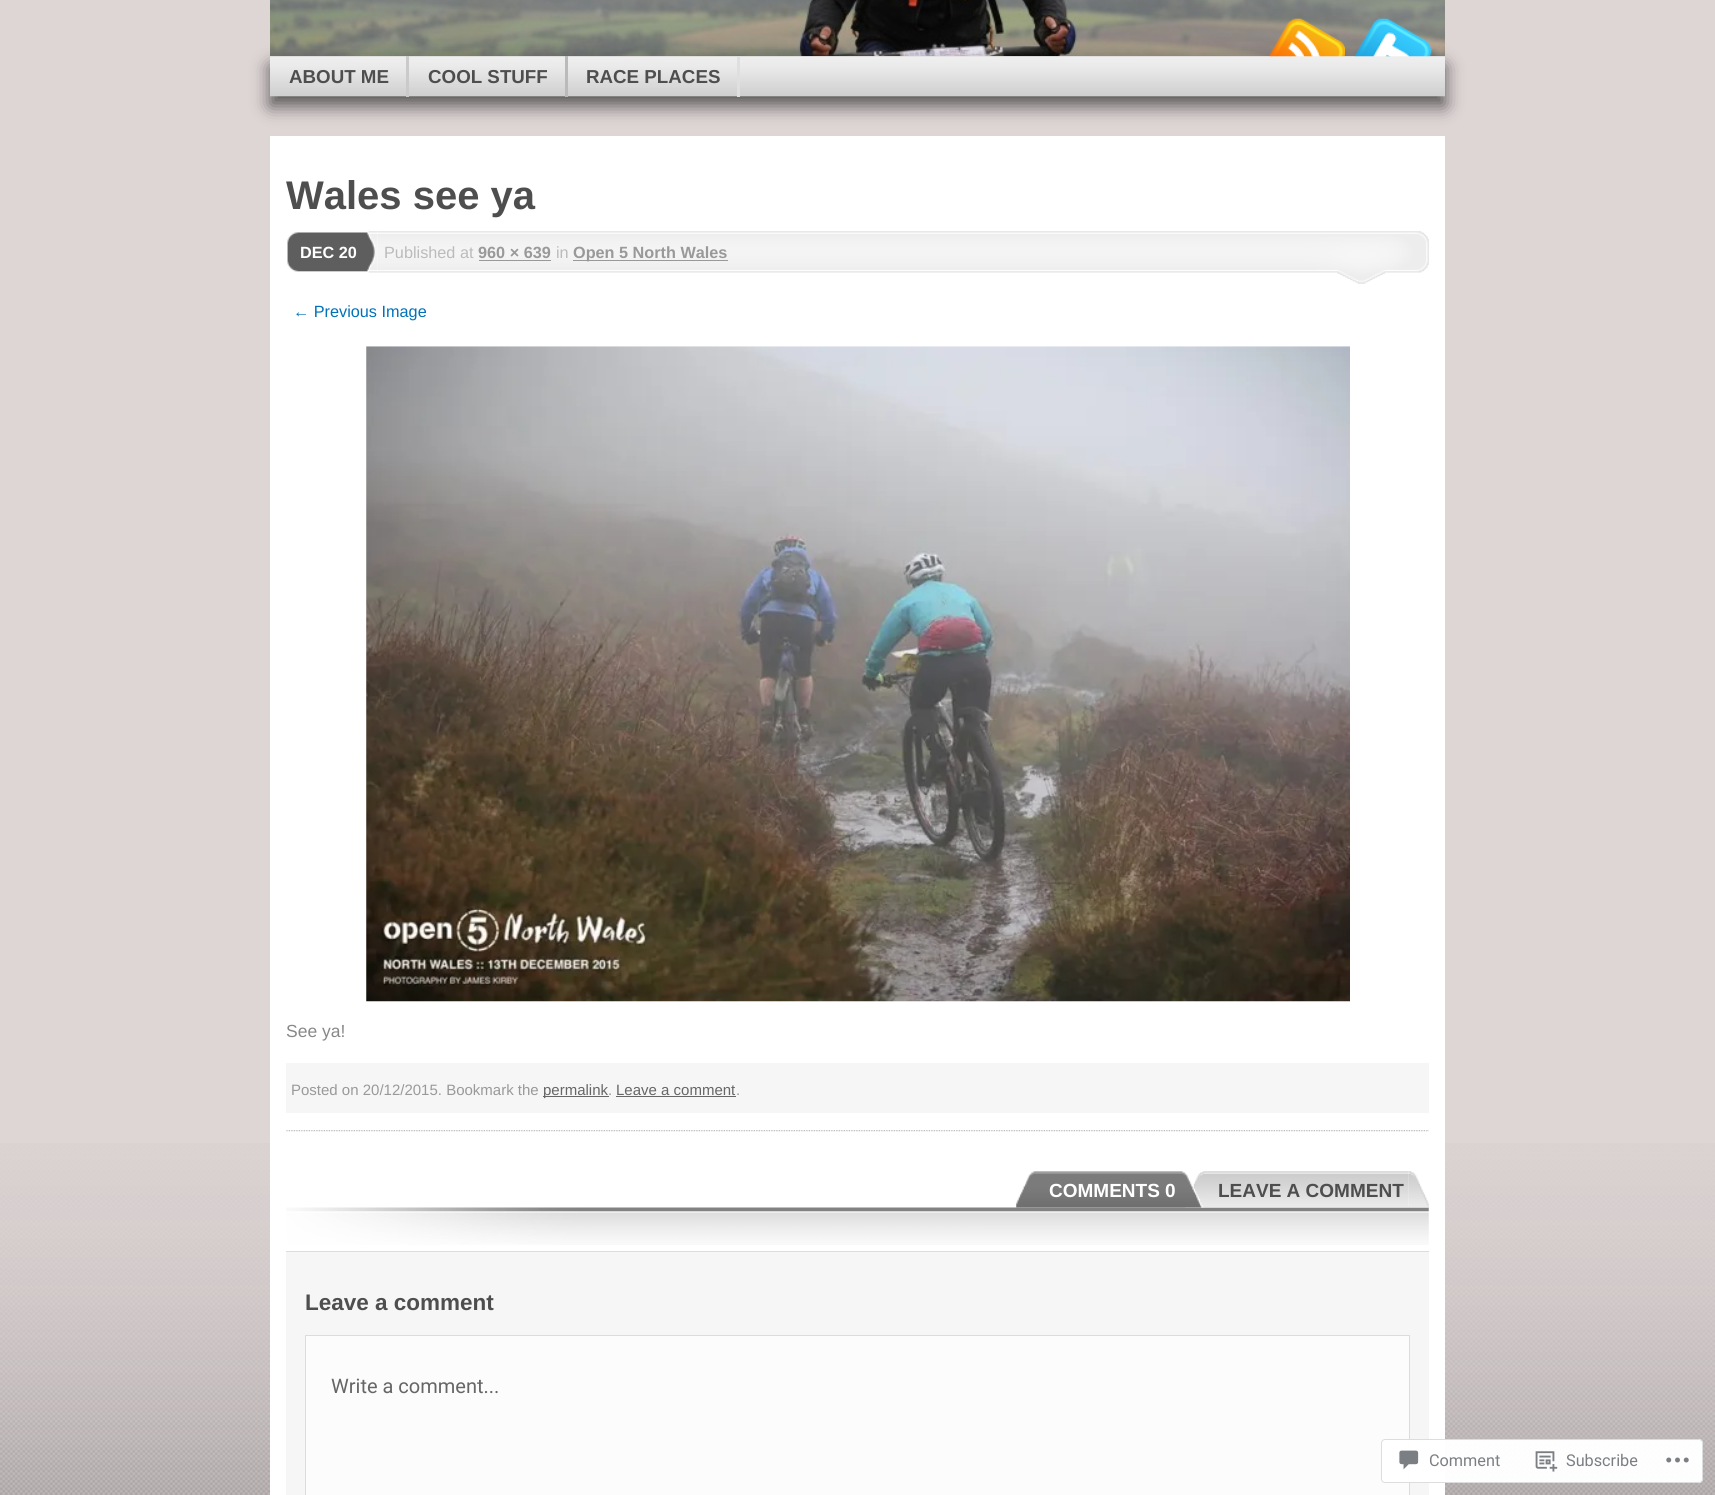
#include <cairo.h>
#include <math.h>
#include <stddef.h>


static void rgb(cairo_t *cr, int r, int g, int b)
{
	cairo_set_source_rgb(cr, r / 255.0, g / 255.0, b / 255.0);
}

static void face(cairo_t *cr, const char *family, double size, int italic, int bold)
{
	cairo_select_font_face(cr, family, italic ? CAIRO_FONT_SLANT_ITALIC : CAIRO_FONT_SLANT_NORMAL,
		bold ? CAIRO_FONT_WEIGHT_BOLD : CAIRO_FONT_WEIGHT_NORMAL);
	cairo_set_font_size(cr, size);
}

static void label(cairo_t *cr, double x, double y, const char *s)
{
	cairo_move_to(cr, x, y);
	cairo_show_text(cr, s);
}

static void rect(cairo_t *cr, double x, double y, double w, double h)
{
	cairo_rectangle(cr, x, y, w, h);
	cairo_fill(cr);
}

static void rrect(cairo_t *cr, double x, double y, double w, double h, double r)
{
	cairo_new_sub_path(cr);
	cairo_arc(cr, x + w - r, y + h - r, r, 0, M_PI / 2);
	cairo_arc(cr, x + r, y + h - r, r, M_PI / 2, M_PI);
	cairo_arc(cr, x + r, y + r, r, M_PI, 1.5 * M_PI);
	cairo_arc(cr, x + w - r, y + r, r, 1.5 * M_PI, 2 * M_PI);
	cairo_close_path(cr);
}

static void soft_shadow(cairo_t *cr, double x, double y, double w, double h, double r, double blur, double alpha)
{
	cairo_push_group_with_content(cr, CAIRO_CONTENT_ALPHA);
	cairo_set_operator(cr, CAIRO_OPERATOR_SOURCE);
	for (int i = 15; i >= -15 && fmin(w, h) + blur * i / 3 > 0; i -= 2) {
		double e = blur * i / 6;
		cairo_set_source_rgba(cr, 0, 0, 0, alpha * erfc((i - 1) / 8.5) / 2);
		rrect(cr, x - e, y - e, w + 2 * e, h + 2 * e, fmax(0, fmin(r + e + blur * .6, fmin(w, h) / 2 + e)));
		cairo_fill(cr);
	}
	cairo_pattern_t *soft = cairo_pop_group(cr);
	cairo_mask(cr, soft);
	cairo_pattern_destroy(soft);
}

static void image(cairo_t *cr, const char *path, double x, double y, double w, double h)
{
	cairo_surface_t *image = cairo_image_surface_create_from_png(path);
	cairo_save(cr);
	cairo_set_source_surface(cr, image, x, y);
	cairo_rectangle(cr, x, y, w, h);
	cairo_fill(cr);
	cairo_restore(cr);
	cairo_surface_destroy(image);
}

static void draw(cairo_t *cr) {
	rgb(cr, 222, 213, 213);
	cairo_paint(cr);
	image(cr, "image0.png", 0, 1143, 1715, 352);
	image(cr, "image1.png", 270, 0, 1175, 57);
	rgb(cr, 0, 0, 0);
	soft_shadow(cr, 270, 66, 1175, 40, 0, 9, 0.6);
	image(cr, "image2.png", 1268, 18, 77, 39);
	image(cr, "image3.png", 1353, 18, 79, 39);
	image(cr, "image4.png", 270, 56, 1175, 41);
	rgb(cr, 202, 202, 202);
	rect(cr, 406, 56, 3, 41);
	face(cr, "Liberation Sans", 18.75, 0, 1);
	rgb(cr, 78, 78, 78);
	label(cr, 289, 83, "ABOUT ME");
	rgb(cr, 186, 186, 186);
	rect(cr, 565, 56, 3, 41);
	rgb(cr, 78, 78, 78);
	label(cr, 428, 83, "COOL STUFF");
	rgb(cr, 223, 223, 223);
	rect(cr, 737, 56, 3, 41);
	rgb(cr, 78, 78, 78);
	label(cr, 586, 83, "RACE PLACES");
	rgb(cr, 255, 255, 255);
	rect(cr, 270, 136, 1175, 1359);
	image(cr, "image5.png", 286, 1130, 1143, 2);
	face(cr, "Liberation Sans", 40, 0, 1);
	rgb(cr, 78, 78, 78);
	label(cr, 286, 209, "Wales see ya");
	image(cr, "image6.png", 287, 232, 14, 40);
	image(cr, "image7.png", 301, 231, 77, 42);
	face(cr, "Liberation Sans", 16.25, 0, 1);
	rgb(cr, 255, 255, 255);
	label(cr, 300, 258, "DEC 20");
	image(cr, "image8.png", 377, 231, 1052, 53);
	face(cr, "Liberation Sans", 16.25, 0, 0);
	rgb(cr, 187, 187, 187);
	label(cr, 384, 258, "Published at");
	face(cr, "Liberation Sans", 16.25, 0, 1);
	rgb(cr, 153, 153, 153);
	label(cr, 478, 258, "960 × 639");
	rect(cr, 479, 260, 72, 1);
	face(cr, "Liberation Sans", 16.25, 0, 0);
	rgb(cr, 187, 187, 187);
	label(cr, 556, 258, "in");
	rgb(cr, 153, 153, 153);
	rect(cr, 573, 260, 155, 1);
	face(cr, "Liberation Sans", 16.25, 0, 1);
	label(cr, 573, 258, "Open 5 North Wales");
	face(cr, "Liberation Sans", 16.25, 0, 0);
	rgb(cr, 0, 113, 187);
	label(cr, 293, 317, "← Previous Image");
	image(cr, "image9.png", 366, 346, 984, 656);
	face(cr, "Liberation Sans", 17.5, 0, 0);
	rgb(cr, 136, 136, 136);
	label(cr, 286, 1037, "See ya!");
	rgb(cr, 246, 246, 246);
	rect(cr, 286, 1063, 1143, 50);
	face(cr, "Liberation Sans", 15, 0, 0);
	rgb(cr, 153, 153, 153);
	label(cr, 291, 1095, "Posted on 20/12/2015. Bookmark the");
	rgb(cr, 102, 102, 102);
	rect(cr, 543, 1096, 66, 1);
	label(cr, 543, 1095, "permalink");
	rgb(cr, 153, 153, 153);
	label(cr, 608, 1095, ".");
	rgb(cr, 102, 102, 102);
	label(cr, 616, 1095, "Leave a comment");
	rect(cr, 616, 1096, 120, 1);
	rgb(cr, 153, 153, 153);
	label(cr, 736, 1095, ".");
	image(cr, "image10.png", 286, 1207, 1143, 38);
	image(cr, "image13.png", 1408, 1171, 21, 37);
	image(cr, "image14.png", 1185, 1171, 224, 37);
	image(cr, "image11.png", 1180, 1171, 24, 37);
	image(cr, "image12.png", 1016, 1171, 164, 37);
	face(cr, "Liberation Sans", 19, 0, 1);
	rgb(cr, 255, 255, 255);
	label(cr, 1049, 1197, "COMMENTS 0");
	rgb(cr, 78, 78, 78);
	label(cr, 1218, 1197, "LEAVE A COMMENT");
	rgb(cr, 246, 246, 246);
	rect(cr, 286, 1252, 1143, 243);
	rgb(cr, 221, 221, 221);
	rect(cr, 286, 1251, 1143, 1);
	face(cr, "Liberation Sans", 22.5, 0, 1);
	rgb(cr, 78, 78, 78);
	label(cr, 305, 1310, "Leave a comment");
	rgb(cr, 252, 252, 252);
	cairo_rectangle(cr, 305.5, 1335.5, 1104, 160);
	cairo_fill_preserve(cr);
	rgb(cr, 220, 220, 222);
	cairo_set_line_width(cr, 1);
	cairo_stroke(cr);
	face(cr, "Roboto", 20, 0, 0);
	rgb(cr, 102, 102, 102);
	label(cr, 331, 1393, "Write a comment...");
	cairo_set_source_rgba(cr, 1, 1, 1, 0.98);
	rrect(cr, 1381, 1439, 322, 44, 4);
	cairo_fill(cr);
	rrect(cr, 1381.5, 1439.5, 321, 43, 3.5);
	cairo_set_source_rgba(cr, 0.863, 0.863, 0.871, 0.98);
	cairo_stroke(cr);
	image(cr, "image15.png", 1399, 1450, 20, 20);
	face(cr, "Roboto", 16.25, 0, 0);
	rgb(cr, 123, 127, 132);
	label(cr, 1429, 1466, "Comment");
	image(cr, "image16.png", 1535, 1451, 23, 21);
	label(cr, 1566, 1466, "Subscribe");
	image(cr, "image17.png", 1666, 1457, 23, 6);
}

int main(void) {
	cairo_surface_t *surface = cairo_image_surface_create(CAIRO_FORMAT_RGB24, 1715, 1495);
	cairo_t *cr = cairo_create(surface);
	cairo_font_options_t *options = cairo_font_options_create();
	cairo_font_options_set_hint_metrics(options, CAIRO_HINT_METRICS_OFF);
	cairo_font_options_set_hint_style(options, CAIRO_HINT_STYLE_NONE);
	cairo_set_font_options(cr, options);
	cairo_set_miter_limit(cr, 4);
	draw(cr);
	cairo_surface_write_to_png(surface, "render.png");
	cairo_font_options_destroy(options);
	cairo_destroy(cr);
	cairo_surface_destroy(surface);
	return 0;
}
